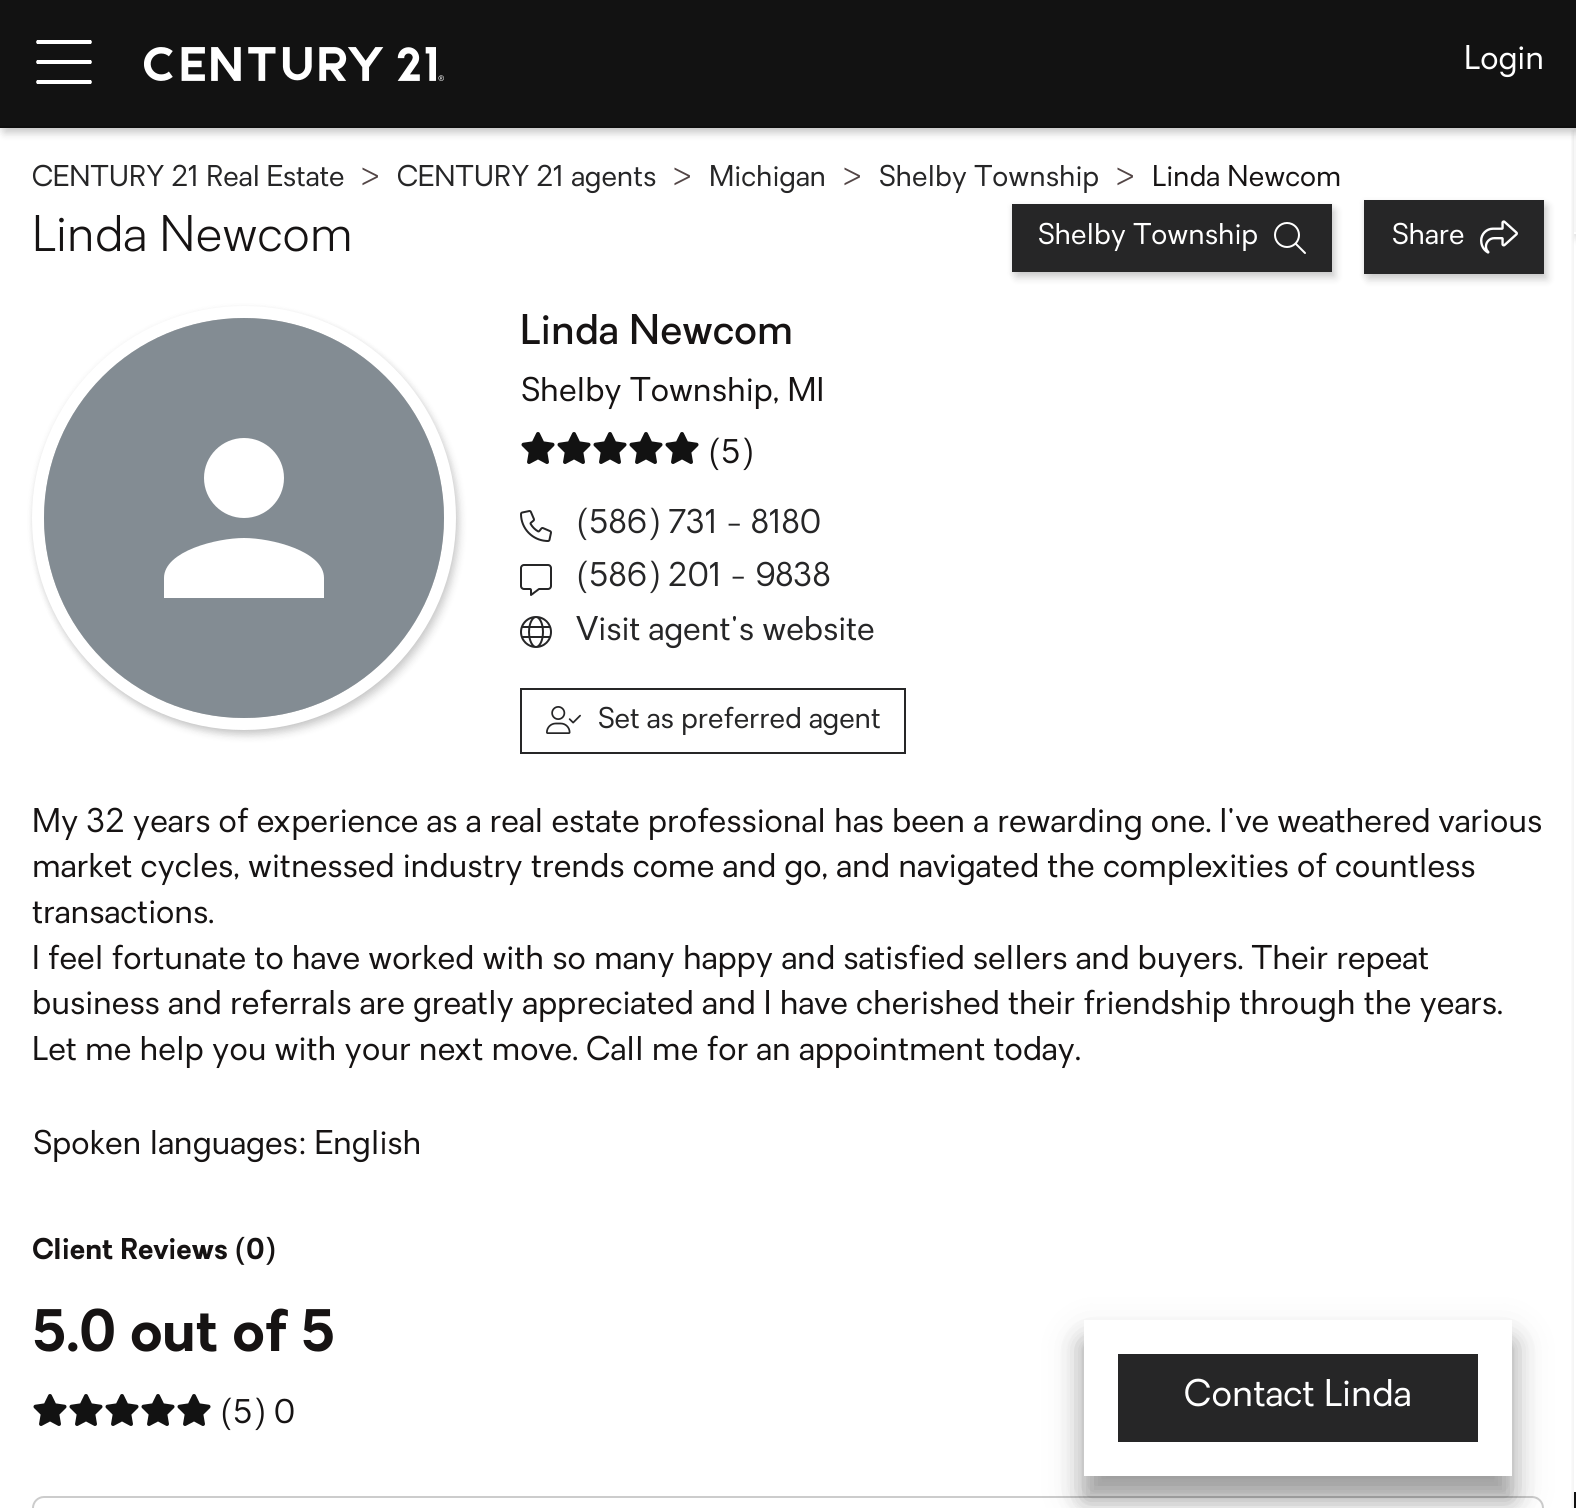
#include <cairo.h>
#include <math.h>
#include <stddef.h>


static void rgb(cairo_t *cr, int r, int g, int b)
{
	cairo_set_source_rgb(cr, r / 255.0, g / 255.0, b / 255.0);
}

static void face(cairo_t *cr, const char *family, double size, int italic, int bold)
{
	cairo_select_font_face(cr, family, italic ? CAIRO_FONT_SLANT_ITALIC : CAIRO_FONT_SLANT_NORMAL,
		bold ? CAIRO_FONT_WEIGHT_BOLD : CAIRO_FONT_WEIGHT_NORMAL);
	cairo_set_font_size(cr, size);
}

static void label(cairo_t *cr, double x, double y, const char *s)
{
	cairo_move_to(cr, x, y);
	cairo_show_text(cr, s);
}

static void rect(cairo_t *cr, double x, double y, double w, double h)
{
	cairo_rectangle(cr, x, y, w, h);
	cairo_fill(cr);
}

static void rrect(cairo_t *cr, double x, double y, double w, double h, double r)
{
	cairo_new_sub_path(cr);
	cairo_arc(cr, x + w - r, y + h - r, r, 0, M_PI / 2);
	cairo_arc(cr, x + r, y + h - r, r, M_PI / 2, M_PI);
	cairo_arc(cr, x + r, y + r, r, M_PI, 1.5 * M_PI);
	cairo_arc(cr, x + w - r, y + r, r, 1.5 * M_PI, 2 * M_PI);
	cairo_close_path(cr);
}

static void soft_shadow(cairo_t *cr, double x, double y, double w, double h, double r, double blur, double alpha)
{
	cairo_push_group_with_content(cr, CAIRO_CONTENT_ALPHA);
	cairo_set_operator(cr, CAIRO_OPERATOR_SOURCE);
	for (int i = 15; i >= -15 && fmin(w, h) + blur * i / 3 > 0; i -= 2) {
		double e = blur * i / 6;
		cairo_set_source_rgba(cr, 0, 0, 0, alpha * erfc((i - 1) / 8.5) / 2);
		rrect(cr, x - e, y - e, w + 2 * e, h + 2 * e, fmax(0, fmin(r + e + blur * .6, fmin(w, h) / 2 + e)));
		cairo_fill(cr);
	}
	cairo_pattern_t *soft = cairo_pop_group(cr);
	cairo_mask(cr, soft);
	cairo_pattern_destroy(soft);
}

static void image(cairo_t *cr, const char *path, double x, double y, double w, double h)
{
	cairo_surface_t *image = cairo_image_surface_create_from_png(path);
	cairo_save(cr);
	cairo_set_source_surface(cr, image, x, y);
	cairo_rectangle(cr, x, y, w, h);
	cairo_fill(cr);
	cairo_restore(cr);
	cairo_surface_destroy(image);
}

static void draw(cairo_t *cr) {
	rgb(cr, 255, 255, 255);
	cairo_paint(cr);
	cairo_save(cr);
	cairo_rectangle(cr, 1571, 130, 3, 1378);
	cairo_clip(cr);
	rgb(cr, 0, 0, 0);
	soft_shadow(cr, 1574, 130, 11, 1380, 0, 3, 0.1);
	cairo_restore(cr);
	rgb(cr, 0, 0, 0);
	soft_shadow(cr, 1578, 134, 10, 106, 0, 4, 0.15);
	cairo_save(cr);
	cairo_rectangle(cr, 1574, 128, 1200, 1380);
	cairo_clip(cr);
	soft_shadow(cr, 1574, 130, 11, 106, 0, 3, 0.1);
	cairo_restore(cr);
	rgb(cr, 247, 247, 247);
	rect(cr, 1574, 128, 2, 106);
	rgb(cr, 0, 0, 0);
	soft_shadow(cr, 4, 6, 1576, 128, 0, 4, 0.15);
	soft_shadow(cr, 0, 2, 1576, 128, 0, 3, 0.1);
	rgb(cr, 18, 18, 18);
	rect(cr, 0, 0, 1576, 126);
	rgb(cr, 14, 14, 14);
	rect(cr, 0, 126, 1576, 2);
	rgb(cr, 255, 255, 255);
	cairo_new_path(cr);
	cairo_move_to(cr, 36, 42);
	cairo_line_to(cr, 37, 40);
	cairo_line_to(cr, 91, 40);
	cairo_line_to(cr, 92, 42);
	cairo_line_to(cr, 91, 44);
	cairo_line_to(cr, 37, 44);
	cairo_close_path(cr);
	cairo_move_to(cr, 36, 62);
	cairo_line_to(cr, 37, 60);
	cairo_line_to(cr, 91, 60);
	cairo_line_to(cr, 92, 62);
	cairo_line_to(cr, 91, 64);
	cairo_line_to(cr, 37, 64);
	cairo_close_path(cr);
	cairo_move_to(cr, 92, 82);
	cairo_line_to(cr, 91, 84);
	cairo_line_to(cr, 37, 84);
	cairo_line_to(cr, 36, 82);
	cairo_line_to(cr, 37, 80);
	cairo_line_to(cr, 91, 80);
	cairo_close_path(cr);
	cairo_fill(cr);
	image(cr, "image0.png", 144, 47, 300, 34);
	face(cr, "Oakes", 32, 0, 0);
	label(cr, 1464, 69, "Login");
	face(cr, "Oakes", 28, 0, 0);
	rgb(cr, 38, 38, 39);
	label(cr, 32, 186, "CENTURY 21 Real Estate");
	rgb(cr, 83, 70, 70);
	label(cr, 360, 186, ">");
	rgb(cr, 38, 38, 39);
	label(cr, 397, 186, "CENTURY 21 agents");
	rgb(cr, 83, 70, 70);
	label(cr, 672, 186, ">");
	rgb(cr, 38, 38, 39);
	label(cr, 709, 186, "Michigan");
	rgb(cr, 83, 70, 70);
	label(cr, 842, 186, ">");
	rgb(cr, 38, 38, 39);
	label(cr, 878, 186, "Shelby Township");
	rgb(cr, 83, 70, 70);
	label(cr, 1115, 186, ">");
	rgb(cr, 22, 19, 19);
	label(cr, 1152, 186, "Linda Newcom");
	face(cr, "Oakes Light", 48, 0, 0);
	label(cr, 32, 251, "Linda Newcom");
	rgb(cr, 0, 0, 0);
	soft_shadow(cr, 1016, 210, 320, 68, 0, 4, 0.15);
	soft_shadow(cr, 1012, 206, 320, 68, 0, 3, 0.1);
	rgb(cr, 38, 38, 39);
	rect(cr, 1012, 204, 320, 68);
	face(cr, "Oakes", 28, 0, 0);
	rgb(cr, 255, 255, 255);
	label(cr, 1037, 244, "Shelby Township");
	image(cr, "image1.png", 1274, 222, 32, 32);
	rgb(cr, 0, 0, 0);
	soft_shadow(cr, 1368, 206, 180, 74, 0, 4, 0.15);
	soft_shadow(cr, 1364, 202, 180, 74, 0, 3, 0.1);
	rgb(cr, 38, 38, 39);
	rect(cr, 1364, 200, 180, 74);
	rgb(cr, 255, 255, 255);
	label(cr, 1391, 244, "Share");
	image(cr, "image2.png", 1480, 220, 38, 34);
	rect(cr, 1574, 232, 2, 2);
	rgb(cr, 18, 18, 18);
	rect(cr, 1574, 1492, 2, 16);
	rgb(cr, 0, 0, 0);
	soft_shadow(cr, 36, 312, 424, 424, 212, 4, 0.15);
	soft_shadow(cr, 32, 308, 424, 424, 212, 3, 0.1);
	cairo_arc(cr, 244, 518, 206, 0, 2 * M_PI);
	rgb(cr, 255, 255, 255);
	cairo_set_line_width(cr, 12);
	cairo_stroke(cr);
	rgb(cr, 131, 140, 147);
	cairo_arc(cr, 244, 518, 200, 0, 2 * M_PI);
	cairo_fill(cr);
	rgb(cr, 255, 255, 255);
	cairo_new_path(cr);
	cairo_move_to(cr, 244, 518);
	cairo_curve_to(cr, 266, 518, 284, 500, 284, 478);
	cairo_curve_to(cr, 284, 456, 266, 438, 244, 438);
	cairo_curve_to(cr, 222, 438, 204, 456, 204, 478);
	cairo_curve_to(cr, 204, 500, 222, 518, 244, 518);
	cairo_close_path(cr);
	cairo_move_to(cr, 244, 538);
	cairo_curve_to(cr, 217, 538, 164, 551, 164, 578);
	cairo_line_to(cr, 164, 598);
	cairo_line_to(cr, 324, 598);
	cairo_line_to(cr, 324, 578);
	cairo_curve_to(cr, 324, 551, 271, 538, 244, 538);
	cairo_close_path(cr);
	cairo_fill(cr);
	face(cr, "Oakes Medium", 40, 0, 0);
	rgb(cr, 22, 19, 19);
	label(cr, 520, 344, "Linda Newcom");
	face(cr, "Oakes", 32, 0, 0);
	label(cr, 520, 401, "Shelby Township, MI");
	image(cr, "image3.png", 521, 432, 34, 32);
	image(cr, "image3.png", 557, 432, 34, 32);
	image(cr, "image3.png", 593, 432, 34, 32);
	image(cr, "image3.png", 629, 432, 34, 32);
	image(cr, "image3.png", 665, 432, 34, 32);
	label(cr, 708, 463, "(5)");
	image(cr, "image4.png", 520, 510, 32, 32);
	rgb(cr, 38, 38, 39);
	label(cr, 576, 533, "(586) 731 - 8180");
	image(cr, "image5.png", 520, 564, 32, 32);
	label(cr, 576, 586, "(586) 201 - 9838");
	image(cr, "image6.png", 520, 616, 32, 32);
	label(cr, 576, 640, "Visit agent's website");
	cairo_rectangle(cr, 521, 689, 384, 64);
	cairo_set_line_width(cr, 2);
	cairo_stroke(cr);
	image(cr, "image7.png", 546, 706, 35, 28);
	face(cr, "Oakes", 28, 0, 0);
	label(cr, 597, 728, "Set as preferred agent");
	face(cr, "Oakes", 32, 0, 0);
	rgb(cr, 22, 19, 19);
	label(cr, 32, 832, "My 32 years of experience as a real estate professional has been a rewarding one. I've weathered various");
	label(cr, 32, 877, "market cycles, witnessed industry trends come and go, and navigated the complexities of countless");
	label(cr, 32, 923, "transactions.");
	label(cr, 32, 969, "I feel fortunate to have worked with so many happy and satisfied sellers and buyers. Their repeat");
	label(cr, 32, 1014, "business and referrals are greatly appreciated and I have cherished their friendship through the years.");
	label(cr, 32, 1060, "Let me help you with your next move. Call me for an appointment today.");
	label(cr, 32, 1154, "Spoken languages: English");
	face(cr, "Oakes", 28, 0, 1);
	label(cr, 32, 1259, "Client Reviews (0)");
	face(cr, "Oakes", 56, 0, 1);
	label(cr, 32, 1351, "5.0 out of 5");
	image(cr, "image3.png", 33, 1394, 34, 32);
	image(cr, "image3.png", 69, 1394, 34, 32);
	image(cr, "image3.png", 105, 1394, 34, 32);
	image(cr, "image3.png", 141, 1394, 34, 32);
	image(cr, "image3.png", 177, 1394, 34, 32);
	face(cr, "Oakes", 32, 0, 0);
	label(cr, 220, 1423, "(5) 0");
	rrect(cr, 33, 1497, 1510, 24, 11);
	rgb(cr, 204, 204, 204);
	cairo_stroke(cr);
	cairo_save(cr);
	cairo_set_fill_rule(cr, CAIRO_FILL_RULE_EVEN_ODD);
	cairo_new_path(cr);
	cairo_move_to(cr, 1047, 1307);
	cairo_line_to(cr, 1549, 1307);
	cairo_line_to(cr, 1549, 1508);
	cairo_line_to(cr, 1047, 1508);
	cairo_close_path(cr);
	cairo_move_to(cr, 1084, 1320);
	cairo_line_to(cr, 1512, 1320);
	cairo_line_to(cr, 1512, 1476);
	cairo_line_to(cr, 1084, 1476);
	cairo_close_path(cr);
	cairo_clip(cr);
	rgb(cr, 0, 0, 0);
	soft_shadow(cr, 1084, 1344, 428, 156, 0, 12, 0.25);
	cairo_restore(cr);
	cairo_save(cr);
	cairo_set_fill_rule(cr, CAIRO_FILL_RULE_EVEN_ODD);
	cairo_new_path(cr);
	cairo_move_to(cr, 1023, 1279);
	cairo_line_to(cr, 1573, 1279);
	cairo_line_to(cr, 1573, 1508);
	cairo_line_to(cr, 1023, 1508);
	cairo_close_path(cr);
	cairo_move_to(cr, 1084, 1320);
	cairo_line_to(cr, 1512, 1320);
	cairo_line_to(cr, 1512, 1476);
	cairo_line_to(cr, 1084, 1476);
	cairo_close_path(cr);
	cairo_clip(cr);
	rgb(cr, 0, 0, 0);
	soft_shadow(cr, 1084, 1340, 428, 156, 0, 20, 0.2);
	cairo_restore(cr);
	rgb(cr, 38, 38, 39);
	rect(cr, 1118, 1354, 360, 88);
	face(cr, "Oakes", 36, 0, 0);
	rgb(cr, 255, 255, 255);
	label(cr, 1184, 1406, "Contact Linda");
}

int main(void) {
	cairo_surface_t *surface = cairo_image_surface_create(CAIRO_FORMAT_RGB24, 1576, 1508);
	cairo_t *cr = cairo_create(surface);
	cairo_font_options_t *options = cairo_font_options_create();
	cairo_font_options_set_hint_metrics(options, CAIRO_HINT_METRICS_OFF);
	cairo_font_options_set_hint_style(options, CAIRO_HINT_STYLE_NONE);
	cairo_set_font_options(cr, options);
	cairo_set_miter_limit(cr, 4);
	draw(cr);
	cairo_surface_write_to_png(surface, "render.png");
	cairo_font_options_destroy(options);
	cairo_destroy(cr);
	cairo_surface_destroy(surface);
	return 0;
}
